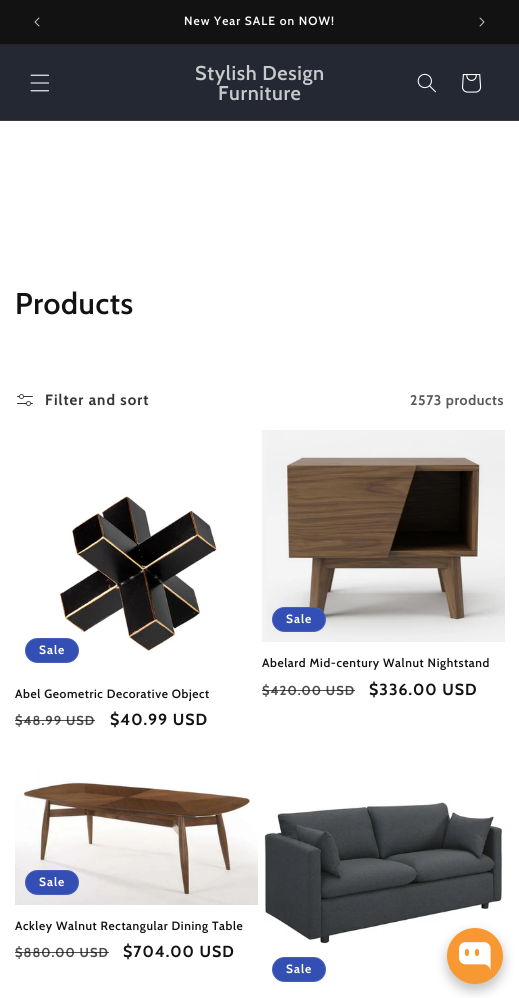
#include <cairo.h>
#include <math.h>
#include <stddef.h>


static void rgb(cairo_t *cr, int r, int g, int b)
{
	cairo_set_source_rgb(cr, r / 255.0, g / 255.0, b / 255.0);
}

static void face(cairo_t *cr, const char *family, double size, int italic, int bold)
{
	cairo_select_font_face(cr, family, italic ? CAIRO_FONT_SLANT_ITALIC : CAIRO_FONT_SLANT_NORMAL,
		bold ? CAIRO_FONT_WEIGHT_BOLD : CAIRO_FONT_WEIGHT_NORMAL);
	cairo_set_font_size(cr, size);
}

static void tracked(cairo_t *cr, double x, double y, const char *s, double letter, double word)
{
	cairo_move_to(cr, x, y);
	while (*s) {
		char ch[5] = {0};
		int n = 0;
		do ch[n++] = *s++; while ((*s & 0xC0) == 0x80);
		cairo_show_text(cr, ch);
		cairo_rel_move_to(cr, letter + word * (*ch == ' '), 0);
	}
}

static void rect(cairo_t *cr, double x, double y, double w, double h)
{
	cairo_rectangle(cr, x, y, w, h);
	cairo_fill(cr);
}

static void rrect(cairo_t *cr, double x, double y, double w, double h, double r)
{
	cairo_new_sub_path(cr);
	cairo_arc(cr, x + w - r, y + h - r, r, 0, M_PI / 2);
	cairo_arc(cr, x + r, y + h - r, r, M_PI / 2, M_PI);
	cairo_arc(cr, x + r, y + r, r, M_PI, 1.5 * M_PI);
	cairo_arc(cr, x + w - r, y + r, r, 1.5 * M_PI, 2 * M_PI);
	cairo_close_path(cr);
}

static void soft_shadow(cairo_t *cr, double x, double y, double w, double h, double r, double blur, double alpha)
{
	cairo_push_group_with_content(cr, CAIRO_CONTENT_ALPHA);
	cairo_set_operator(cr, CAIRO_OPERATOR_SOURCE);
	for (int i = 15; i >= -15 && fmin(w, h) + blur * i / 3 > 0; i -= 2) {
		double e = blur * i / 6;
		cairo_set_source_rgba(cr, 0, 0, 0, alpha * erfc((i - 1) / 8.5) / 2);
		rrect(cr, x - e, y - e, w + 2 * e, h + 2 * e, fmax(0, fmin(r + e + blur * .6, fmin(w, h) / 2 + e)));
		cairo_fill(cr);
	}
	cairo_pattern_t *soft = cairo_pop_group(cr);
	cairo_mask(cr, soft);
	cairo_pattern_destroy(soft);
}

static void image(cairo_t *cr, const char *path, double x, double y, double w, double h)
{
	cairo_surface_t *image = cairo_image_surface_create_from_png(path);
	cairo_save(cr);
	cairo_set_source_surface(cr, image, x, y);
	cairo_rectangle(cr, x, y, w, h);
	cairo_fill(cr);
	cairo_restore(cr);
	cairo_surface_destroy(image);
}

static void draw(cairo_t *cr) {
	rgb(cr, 255, 255, 255);
	cairo_paint(cr);
	rgb(cr, 18, 18, 18);
	rect(cr, 0, 0, 519, 44);
	rgb(cr, 37, 37, 37);
	rect(cr, 0, 44, 519, 1);
	image(cr, "image0.png", 34, 17, 6, 10);
	face(cr, "Cabin SemiBold", 12, 0, 0);
	rgb(cr, 255, 255, 255);
	tracked(cr, 184, 25, "New Year SALE on NOW!", 1, 0);
	image(cr, "image1.png", 479, 17, 6, 10);
	rgb(cr, 36, 40, 51);
	rect(cr, 0, 45, 519, 75);
	rgb(cr, 54, 57, 67);
	rect(cr, 0, 120, 519, 1);
	image(cr, "image2.png", 30, 74, 20, 18);
	face(cr, "Cabin SemiBold", 20, 0, 0);
	rgb(cr, 200, 201, 204);
	tracked(cr, 195, 80, "Stylish Design", 0.6, 0);
	tracked(cr, 218, 100, "Furniture", 0.6, 0);
	image(cr, "image3.png", 417, 73, 19, 20);
	image(cr, "image4.png", 462, 74, 20, 19);
	face(cr, "Cabin SemiBold", 30, 0, 0);
	rgb(cr, 18, 18, 18);
	tracked(cr, 15, 314, "Products", 0.6, 0);
	image(cr, "image5.png", 17, 394, 16, 12);
	face(cr, "Cabin", 15, 0, 1);
	rgb(cr, 54, 54, 54);
	tracked(cr, 45, 405, "Filter and sort", 1, 0);
	face(cr, "Cabin", 14, 0, 1);
	rgb(cr, 89, 89, 89);
	tracked(cr, 410, 405, "2573 products", 0.6, 0);
	image(cr, "image6.png", 15, 430, 243, 243);
	rgb(cr, 51, 79, 180);
	rrect(cr, 25, 638, 54, 25, 12.5);
	cairo_fill(cr);
	rrect(cr, 25.5, 638.5, 53, 24, 12);
	cairo_set_source_rgba(cr, 1, 1, 1, 0.1);
	cairo_set_line_width(cr, 1);
	cairo_stroke(cr);
	face(cr, "Cabin", 12, 0, 1);
	rgb(cr, 255, 255, 255);
	tracked(cr, 39, 654, "Sale", 1, 0);
	face(cr, "Cabin SemiBold", 12, 0, 0);
	rgb(cr, 18, 18, 18);
	tracked(cr, 15, 698, "Abel Geometric Decorative Object", 0.6, 0);
	face(cr, "Cabin", 13, 0, 1);
	rgb(cr, 77, 77, 77);
	tracked(cr, 15, 725, "$48.99 USD", 1, 0);
	cairo_set_source_rgba(cr, 0.071, 0.071, 0.071, 0.75);
	rect(cr, 15, 720, 80, 1);
	face(cr, "Cabin", 16, 0, 1);
	rgb(cr, 18, 18, 18);
	tracked(cr, 110, 725, "$40.99 USD", 1, 0);
	rgb(cr, 243, 243, 243);
	rect(cr, 262, 430, 5, 212);
	image(cr, "image7.png", 267, 430, 238, 212);
	rgb(cr, 51, 79, 180);
	rrect(cr, 272, 607, 54, 25, 12.5);
	cairo_fill(cr);
	rrect(cr, 272.5, 607.5, 53, 24, 12);
	cairo_set_source_rgba(cr, 1, 1, 1, 0.1);
	cairo_stroke(cr);
	face(cr, "Cabin", 12, 0, 1);
	rgb(cr, 255, 255, 255);
	tracked(cr, 286, 623, "Sale", 1, 0);
	face(cr, "Cabin SemiBold", 12, 0, 0);
	rgb(cr, 18, 18, 18);
	tracked(cr, 262, 667, "Abelard Mid-century Walnut Nightstand", 0.6, 0);
	face(cr, "Cabin", 13, 0, 1);
	rgb(cr, 77, 77, 77);
	tracked(cr, 262, 695, "$420.00 USD", 1, 0);
	cairo_set_source_rgba(cr, 0.071, 0.071, 0.071, 0.75);
	rect(cr, 262, 690, 93, 1);
	face(cr, "Cabin", 16, 0, 1);
	rgb(cr, 18, 18, 18);
	tracked(cr, 369, 695, "$336.00 USD", 1, 0);
	image(cr, "image8.png", 15, 749, 243, 156);
	rgb(cr, 51, 79, 180);
	rrect(cr, 25, 870, 54, 25, 12.5);
	cairo_fill(cr);
	rrect(cr, 25.5, 870.5, 53, 24, 12);
	cairo_set_source_rgba(cr, 1, 1, 1, 0.1);
	cairo_stroke(cr);
	face(cr, "Cabin", 12, 0, 1);
	rgb(cr, 255, 255, 255);
	tracked(cr, 39, 886, "Sale", 1, 0);
	face(cr, "Cabin SemiBold", 12, 0, 0);
	rgb(cr, 18, 18, 18);
	tracked(cr, 15, 930, "Ackley Walnut Rectangular Dining Table", 0.6, 0);
	face(cr, "Cabin", 13, 0, 1);
	rgb(cr, 77, 77, 77);
	tracked(cr, 15, 957, "$880.00 USD", 1, 0);
	cairo_set_source_rgba(cr, 0.071, 0.071, 0.071, 0.75);
	rect(cr, 15, 952, 94, 1);
	face(cr, "Cabin", 16, 0, 1);
	rgb(cr, 18, 18, 18);
	tracked(cr, 123, 957, "$704.00 USD", 1, 0);
	image(cr, "image9.png", 262, 749, 242, 243);
	rgb(cr, 51, 79, 180);
	rrect(cr, 272, 957, 54, 25, 12.5);
	cairo_fill(cr);
	rrect(cr, 272.5, 957.5, 53, 24, 12);
	cairo_set_source_rgba(cr, 1, 1, 1, 0.1);
	cairo_stroke(cr);
	face(cr, "Cabin", 12, 0, 1);
	rgb(cr, 255, 255, 255);
	tracked(cr, 286, 973, "Sale", 1, 0);
	rgb(cr, 0, 0, 0);
	soft_shadow(cr, 447, 934, 56, 56, 28, 6, 0.25);
	rgb(cr, 248, 152, 51);
	cairo_arc(cr, 475, 956, 28, 0, 2 * M_PI);
	cairo_fill(cr);
	image(cr, "image10.png", 459, 942, 32, 28);
}

int main(void) {
	cairo_surface_t *surface = cairo_image_surface_create(CAIRO_FORMAT_RGB24, 519, 998);
	cairo_t *cr = cairo_create(surface);
	cairo_font_options_t *options = cairo_font_options_create();
	cairo_font_options_set_hint_metrics(options, CAIRO_HINT_METRICS_OFF);
	cairo_font_options_set_hint_style(options, CAIRO_HINT_STYLE_NONE);
	cairo_set_font_options(cr, options);
	cairo_set_miter_limit(cr, 4);
	draw(cr);
	cairo_surface_write_to_png(surface, "render.png");
	cairo_font_options_destroy(options);
	cairo_destroy(cr);
	cairo_surface_destroy(surface);
	return 0;
}
